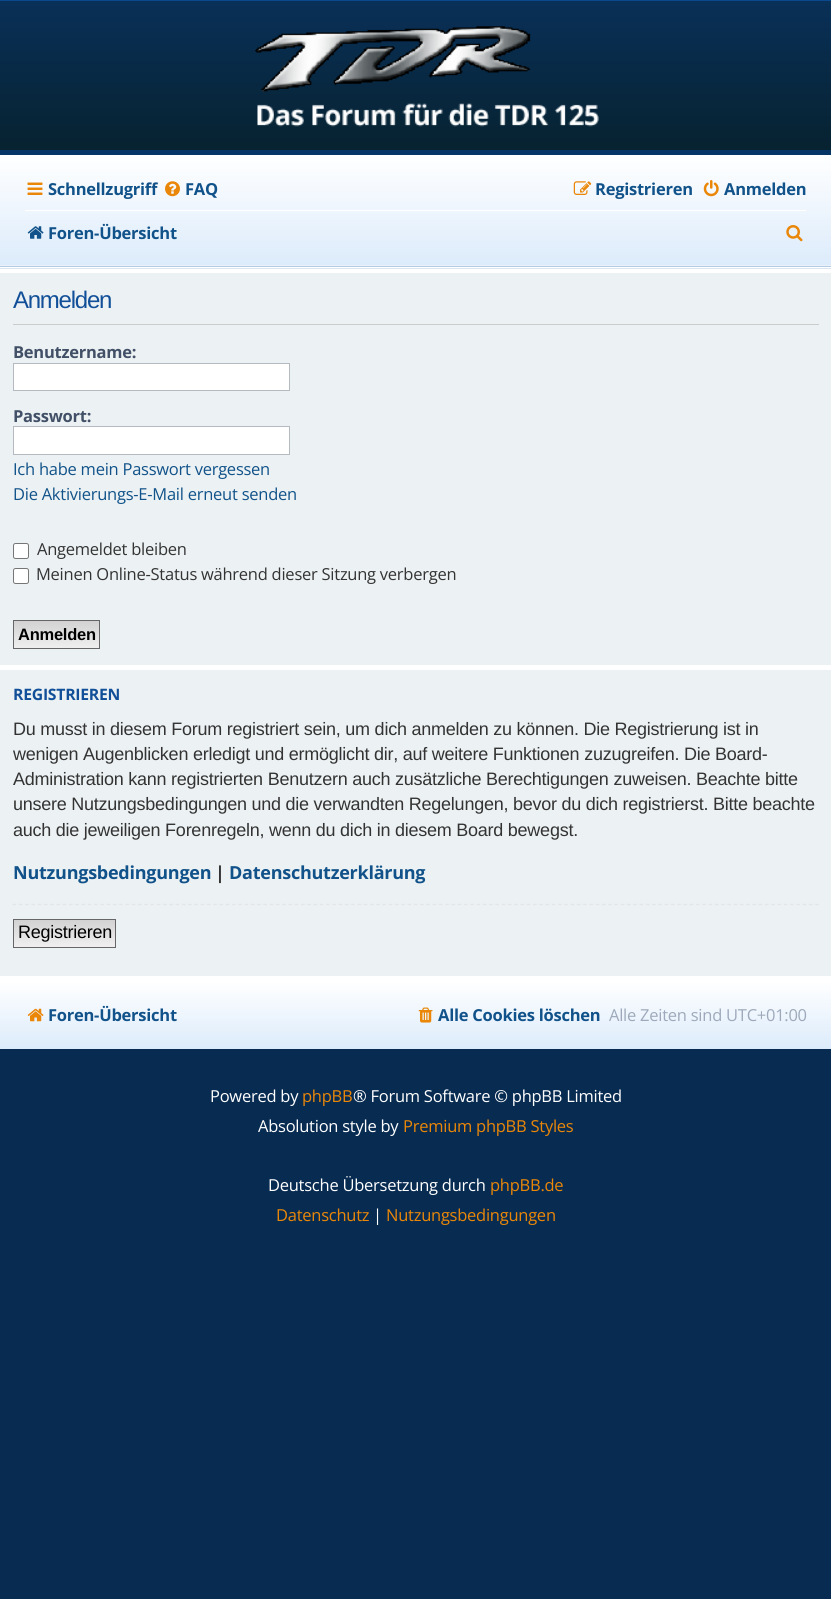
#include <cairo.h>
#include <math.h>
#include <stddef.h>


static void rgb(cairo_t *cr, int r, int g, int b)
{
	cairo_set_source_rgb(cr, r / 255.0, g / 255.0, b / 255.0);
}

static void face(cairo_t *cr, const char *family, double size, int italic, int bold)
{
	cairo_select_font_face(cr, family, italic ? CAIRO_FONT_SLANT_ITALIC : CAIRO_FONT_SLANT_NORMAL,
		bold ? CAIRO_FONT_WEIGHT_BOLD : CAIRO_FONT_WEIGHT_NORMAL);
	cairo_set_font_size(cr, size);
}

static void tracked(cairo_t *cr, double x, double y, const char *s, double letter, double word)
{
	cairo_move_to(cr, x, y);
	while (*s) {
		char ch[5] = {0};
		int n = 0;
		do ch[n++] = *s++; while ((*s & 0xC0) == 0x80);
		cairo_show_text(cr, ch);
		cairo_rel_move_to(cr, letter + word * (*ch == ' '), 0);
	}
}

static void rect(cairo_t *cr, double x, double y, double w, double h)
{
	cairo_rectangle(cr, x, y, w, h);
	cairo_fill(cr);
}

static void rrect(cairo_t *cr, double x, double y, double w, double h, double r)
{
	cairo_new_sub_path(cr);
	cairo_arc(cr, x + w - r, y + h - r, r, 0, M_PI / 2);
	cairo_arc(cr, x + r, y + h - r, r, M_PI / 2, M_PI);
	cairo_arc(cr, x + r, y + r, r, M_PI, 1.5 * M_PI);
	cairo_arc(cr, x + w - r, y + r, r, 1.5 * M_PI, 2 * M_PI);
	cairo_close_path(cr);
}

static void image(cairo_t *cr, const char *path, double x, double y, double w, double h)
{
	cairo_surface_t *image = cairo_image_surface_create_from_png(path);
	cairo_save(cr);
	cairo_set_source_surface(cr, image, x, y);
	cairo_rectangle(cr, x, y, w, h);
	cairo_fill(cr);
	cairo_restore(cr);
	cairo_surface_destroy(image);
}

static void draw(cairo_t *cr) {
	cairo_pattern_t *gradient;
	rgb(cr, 8, 43, 81);
	cairo_paint(cr);
	rgb(cr, 255, 255, 255);
	rect(cr, 0, 267, 831, 714);
	gradient = cairo_pattern_create_linear(416, 155, 416, 1.2);
	cairo_pattern_add_color_stop_rgba(gradient, 0, 0.027, 0.133, 0.184, 1);
	cairo_pattern_add_color_stop_rgba(gradient, 1, 0.035, 0.188, 0.345, 1);
	cairo_set_source(cr, gradient);
	cairo_pattern_destroy(gradient);
	rect(cr, 0, 1, 831, 149);
	rgb(cr, 10, 73, 142);
	rect(cr, 0, 0, 831, 1);
	image(cr, "image0.png", 255, 26, 344, 101);
	rgb(cr, 217, 230, 241);
	rect(cr, 0, 268, 831, 1);
	gradient = cairo_pattern_create_linear(416, 266, 416, 155);
	cairo_pattern_add_color_stop_rgba(gradient, 0, 0.863, 0.922, 0.984, 1);
	cairo_pattern_add_color_stop_rgba(gradient, 1, 1, 1, 1, 1);
	cairo_set_source(cr, gradient);
	cairo_pattern_destroy(gradient);
	rect(cr, 0, 155, 831, 110);
	rgb(cr, 231, 241, 252);
	rect(cr, 0, 265, 831, 1);
	rgb(cr, 6, 52, 101);
	rect(cr, 0, 150, 831, 5);
	rgb(cr, 179, 204, 228);
	rect(cr, 0, 266, 831, 1);
	image(cr, "image1.png", 27, 182, 16, 13);
	face(cr, "Open Sans", 16.5, 0, 1);
	rgb(cr, 16, 82, 137);
	tracked(cr, 48, 195, "Schnellzugriff", -0.25, 0);
	image(cr, "image2.png", 165, 181, 15, 16);
	tracked(cr, 185, 195, "FAQ", -0.25, 0);
	image(cr, "image3.png", 573, 181, 19, 14);
	tracked(cr, 595, 195, "Registrieren", -0.25, 0);
	image(cr, "image4.png", 703, 180, 16, 17);
	tracked(cr, 724, 195, "Anmelden", -0.25, 0);
	rgb(cr, 255, 255, 255);
	rect(cr, 25, 210, 781, 1);
	image(cr, "image5.png", 27, 226, 17, 13);
	rgb(cr, 16, 82, 137);
	tracked(cr, 48, 239, "Foren-Übersicht", -0.25, 0);
	image(cr, "image6.png", 786, 225, 17, 17);
	rgb(cr, 236, 241, 243);
	rect(cr, 0, 273, 831, 392);
	rgb(cr, 204, 204, 204);
	rect(cr, 13, 324, 806, 1);
	face(cr, "Liberation Sans", 24, 0, 0);
	rgb(cr, 17, 80, 152);
	tracked(cr, 13, 308, "Anmelden", -1.25, 0);
	face(cr, "Open Sans", 16.5, 0, 1);
	rgb(cr, 66, 80, 103);
	tracked(cr, 13, 358, "Benutzername:", -0.25, 0);
	rgb(cr, 255, 255, 255);
	cairo_rectangle(cr, 13.5, 363.5, 276, 27);
	cairo_fill_preserve(cr);
	rgb(cr, 180, 186, 192);
	cairo_set_line_width(cr, 1);
	cairo_stroke(cr);
	rgb(cr, 66, 80, 103);
	tracked(cr, 13, 422, "Passwort:", -0.25, 0);
	rgb(cr, 255, 255, 255);
	cairo_rectangle(cr, 13.5, 426.5, 276, 28);
	cairo_fill_preserve(cr);
	rgb(cr, 180, 186, 192);
	cairo_stroke(cr);
	face(cr, "Open Sans", 16.5, 0, 0);
	rgb(cr, 16, 82, 137);
	tracked(cr, 13, 475, "Ich habe mein Passwort vergessen", -0.25, 0);
	tracked(cr, 13, 500, "Die Aktivierungs-E-Mail erneut senden", -0.25, 0);
	rgb(cr, 255, 255, 255);
	rrect(cr, 13.5, 543.5, 15, 15, 2);
	cairo_fill_preserve(cr);
	rgb(cr, 118, 118, 118);
	cairo_stroke(cr);
	rgb(cr, 51, 51, 51);
	tracked(cr, 37, 555, "Angemeldet bleiben", -0.25, 0);
	rgb(cr, 255, 255, 255);
	rrect(cr, 13.5, 568.5, 15, 15, 2);
	cairo_fill_preserve(cr);
	rgb(cr, 118, 118, 118);
	cairo_stroke(cr);
	rgb(cr, 51, 51, 51);
	tracked(cr, 36, 580, "Meinen Online-Status während dieser Sitzung verbergen", -0.25, 0);
	gradient = cairo_pattern_create_linear(56, 621, 56, 648);
	cairo_pattern_add_color_stop_rgba(gradient, 0, 0.824, 0.824, 0.824, 1);
	cairo_pattern_add_color_stop_rgba(gradient, 1, 0.937, 0.937, 0.937, 1);
	cairo_set_source(cr, gradient);
	cairo_pattern_destroy(gradient);
	rect(cr, 14, 621, 85, 27);
	cairo_rectangle(cr, 13.5, 620.5, 86, 28);
	rgb(cr, 102, 102, 102);
	cairo_stroke(cr);
	face(cr, "Liberation Sans", 16.5, 0, 1);
	rgb(cr, 0, 0, 0);
	tracked(cr, 18, 640, "Anmelden", -0.25, 0);
	rgb(cr, 236, 241, 243);
	rect(cr, 0, 670, 831, 306);
	face(cr, "Open Sans", 15.75, 0, 1);
	rgb(cr, 17, 80, 152);
	tracked(cr, 13, 700, "REGISTRIEREN", -0.25, 0);
	face(cr, "Liberation Sans", 18, 0, 0);
	rgb(cr, 51, 51, 51);
	tracked(cr, 13, 735, "Du musst in diesem Forum registriert sein, um dich anmelden zu können. Die Registrierung ist in", -0.25, 0);
	tracked(cr, 13, 760, "wenigen Augenblicken erledigt und ermöglicht dir, auf weitere Funktionen zuzugreifen. Die Board-", -0.25, 0);
	tracked(cr, 13, 785, "Administration kann registrierten Benutzern auch zusätzliche Berechtigungen zuweisen. Beachte bitte", -0.25, 0);
	tracked(cr, 13, 810, "unsere Nutzungsbedingungen und die verwandten Regelungen, bevor du dich registrierst. Bitte beachte", -0.25, 0);
	tracked(cr, 13, 836, "auch die jeweiligen Forenregeln, wenn du dich in diesem Board bewegst.", -0.25, 0);
	face(cr, "Open Sans", 18, 0, 1);
	rgb(cr, 16, 82, 137);
	tracked(cr, 13, 879, "Nutzungsbedingungen", -0.25, 0);
	rgb(cr, 51, 51, 51);
	tracked(cr, 215, 879, "|", -0.25, 0);
	rgb(cr, 16, 82, 137);
	tracked(cr, 229, 879, "Datenschutzerklärung", -0.25, 0);
	cairo_new_path(cr);
	cairo_move_to(cr, 12.5, 904.5);
	cairo_line_to(cr, 819, 904.5);
	rgb(cr, 226, 230, 231);
	cairo_set_line_width(cr, 1.2);
	cairo_set_dash(cr, (double[]){3.75, 2.52}, 2, 0);
	cairo_stroke(cr);
	rgb(cr, 239, 239, 239);
	rect(cr, 14, 946, 101, 1);
	gradient = cairo_pattern_create_linear(64, 920, 64, 946);
	cairo_pattern_add_color_stop_rgba(gradient, 0, 0.824, 0.824, 0.824, 1);
	cairo_pattern_add_color_stop_rgba(gradient, 1, 0.937, 0.937, 0.937, 1);
	cairo_set_source(cr, gradient);
	cairo_pattern_destroy(gradient);
	rect(cr, 14, 920, 101, 26);
	cairo_rectangle(cr, 13.5, 919.5, 102, 28);
	rgb(cr, 102, 102, 102);
	cairo_set_line_width(cr, 1);
	cairo_set_dash(cr, NULL, 0, 0);
	cairo_stroke(cr);
	face(cr, "Liberation Sans", 18, 0, 0);
	rgb(cr, 0, 0, 0);
	tracked(cr, 18, 938, "Registrieren", -0.25, 0);
	gradient = cairo_pattern_create_linear(416, 1049, 416, 981);
	cairo_pattern_add_color_stop_rgba(gradient, 0, 0.863, 0.922, 0.984, 1);
	cairo_pattern_add_color_stop_rgba(gradient, 1, 1, 1, 1, 1);
	cairo_set_source(cr, gradient);
	cairo_pattern_destroy(gradient);
	rect(cr, 0, 981, 831, 68);
	image(cr, "image7.png", 27, 1008, 17, 14);
	face(cr, "Open Sans", 16.5, 0, 1);
	rgb(cr, 16, 82, 137);
	tracked(cr, 48, 1021, "Foren-Übersicht", -0.25, 0);
	image(cr, "image8.png", 418, 1007, 15, 16);
	tracked(cr, 438, 1021, "Alle Cookies löschen", -0.25, 0);
	face(cr, "Open Sans", 16.5, 0, 0);
	rgb(cr, 157, 169, 186);
	tracked(cr, 609, 1021, "Alle Zeiten sind UTC+01:00", -0.25, 0);
	rgb(cr, 255, 255, 255);
	tracked(cr, 210, 1102, "Powered by", -0.25, 0);
	rgb(cr, 234, 135, 8);
	tracked(cr, 302, 1102, "phpBB", -0.25, 0);
	rgb(cr, 255, 255, 255);
	tracked(cr, 353, 1102, "® Forum Software © phpBB Limited", -0.25, 0);
	tracked(cr, 258, 1132, "Absolution style by", -0.25, 0);
	rgb(cr, 234, 135, 8);
	tracked(cr, 403, 1132, "Premium phpBB Styles", -0.25, 0);
	rgb(cr, 255, 255, 255);
	tracked(cr, 268, 1191, "Deutsche Übersetzung durch", -0.25, 0);
	rgb(cr, 234, 135, 8);
	tracked(cr, 490, 1191, "phpBB.de", -0.25, 0);
	tracked(cr, 276, 1221, "Datenschutz", -0.25, 0);
	rgb(cr, 255, 255, 255);
	tracked(cr, 373, 1221, "|", -0.25, 0);
	rgb(cr, 234, 135, 8);
	tracked(cr, 386, 1221, "Nutzungsbedingungen", -0.25, 0);
}

int main(void) {
	cairo_surface_t *surface = cairo_image_surface_create(CAIRO_FORMAT_RGB24, 831, 1599);
	cairo_t *cr = cairo_create(surface);
	cairo_font_options_t *options = cairo_font_options_create();
	cairo_font_options_set_hint_metrics(options, CAIRO_HINT_METRICS_OFF);
	cairo_font_options_set_hint_style(options, CAIRO_HINT_STYLE_NONE);
	cairo_set_font_options(cr, options);
	cairo_set_miter_limit(cr, 4);
	draw(cr);
	cairo_surface_write_to_png(surface, "render.png");
	cairo_font_options_destroy(options);
	cairo_destroy(cr);
	cairo_surface_destroy(surface);
	return 0;
}
